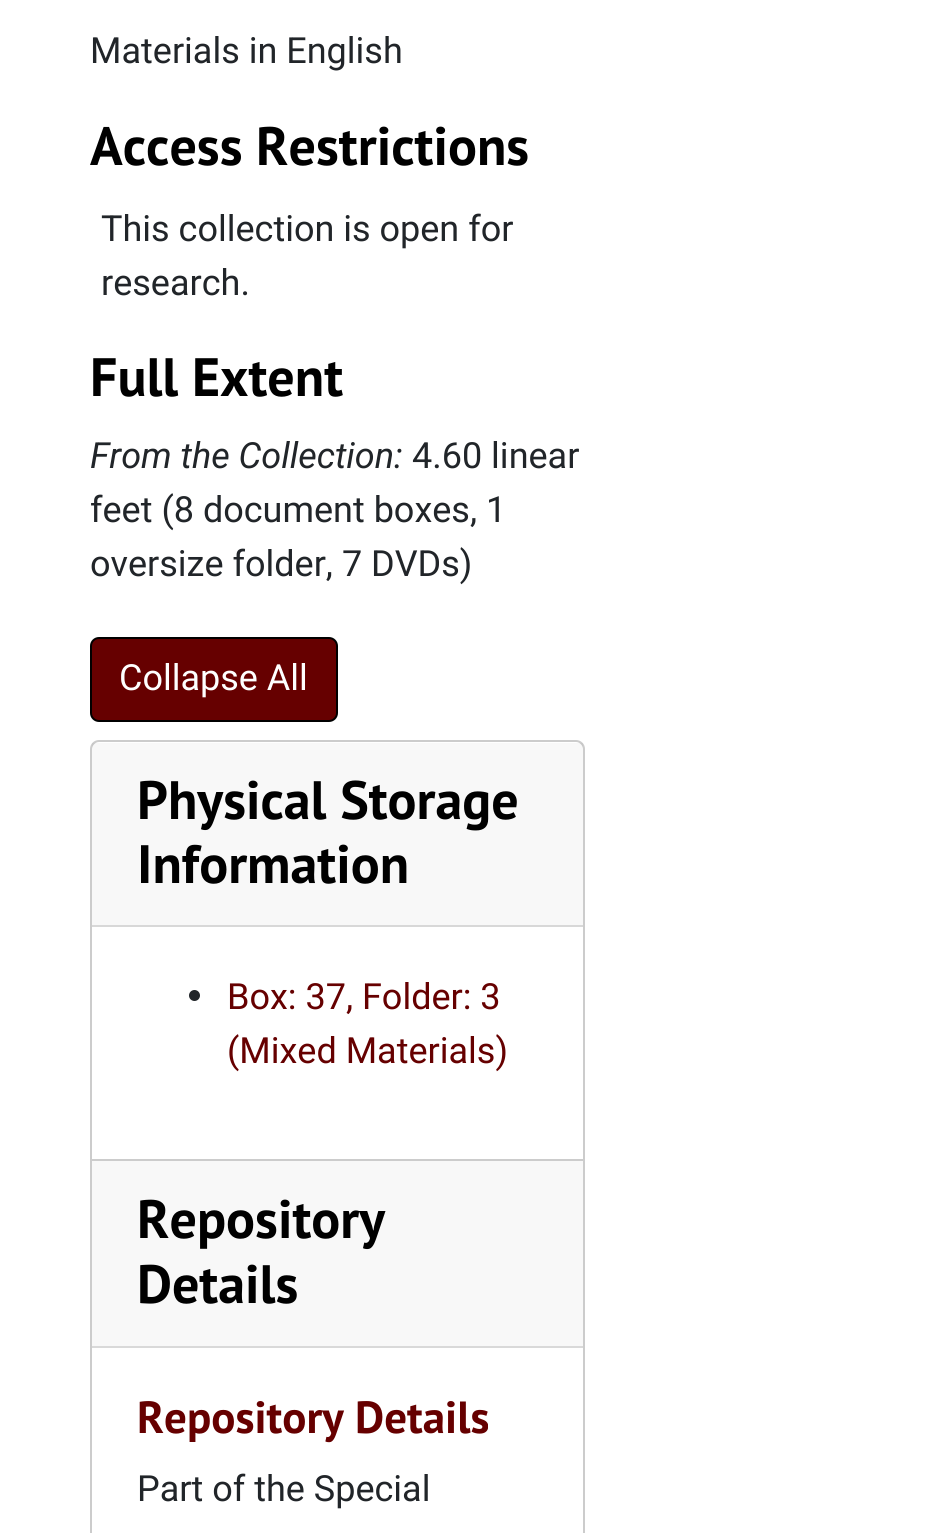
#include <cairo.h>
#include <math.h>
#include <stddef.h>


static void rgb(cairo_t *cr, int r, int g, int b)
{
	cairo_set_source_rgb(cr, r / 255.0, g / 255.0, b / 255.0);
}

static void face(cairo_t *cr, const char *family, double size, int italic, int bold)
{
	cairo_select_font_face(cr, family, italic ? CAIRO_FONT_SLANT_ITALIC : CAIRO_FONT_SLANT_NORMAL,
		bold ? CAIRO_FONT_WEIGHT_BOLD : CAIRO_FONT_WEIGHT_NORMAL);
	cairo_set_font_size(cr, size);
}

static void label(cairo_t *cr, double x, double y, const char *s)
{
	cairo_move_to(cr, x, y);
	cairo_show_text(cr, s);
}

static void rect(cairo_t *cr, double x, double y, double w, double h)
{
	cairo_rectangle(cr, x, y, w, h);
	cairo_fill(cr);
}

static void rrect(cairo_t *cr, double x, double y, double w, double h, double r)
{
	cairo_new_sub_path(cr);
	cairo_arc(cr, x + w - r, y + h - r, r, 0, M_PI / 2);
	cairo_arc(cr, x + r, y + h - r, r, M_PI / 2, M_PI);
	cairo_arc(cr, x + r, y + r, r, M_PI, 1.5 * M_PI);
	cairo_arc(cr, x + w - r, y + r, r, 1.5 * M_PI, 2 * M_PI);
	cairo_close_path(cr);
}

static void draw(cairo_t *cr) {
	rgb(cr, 255, 255, 255);
	cairo_paint(cr);
	face(cr, "Roboto", 36, 0, 0);
	rgb(cr, 33, 37, 41);
	label(cr, 90, 63, "Materials in English");
	face(cr, "PT Sans", 54, 0, 1);
	rgb(cr, 0, 0, 0);
	label(cr, 90, 165, "Access Restrictions");
	face(cr, "Roboto", 36, 0, 0);
	rgb(cr, 33, 37, 41);
	label(cr, 101, 241, "This collection is open for");
	label(cr, 101, 295, "research.");
	face(cr, "PT Sans", 54, 0, 1);
	rgb(cr, 0, 0, 0);
	label(cr, 90, 396, "Full Extent");
	face(cr, "Roboto", 36, 1, 0);
	rgb(cr, 33, 37, 41);
	label(cr, 90, 468, "From the Collection:");
	face(cr, "Roboto", 36, 0, 0);
	label(cr, 412, 468, "4.60 linear");
	label(cr, 90, 522, "feet (8 document boxes, 1");
	label(cr, 90, 576, "oversize folder, 7 DVDs)");
	rgb(cr, 102, 0, 0);
	rrect(cr, 91, 638, 246, 83, 8);
	cairo_fill_preserve(cr);
	rgb(cr, 0, 0, 0);
	cairo_stroke(cr);
	rgb(cr, 255, 255, 255);
	label(cr, 119, 690, "Collapse All");
	rgb(cr, 204, 204, 204);
	cairo_set_fill_rule(cr, CAIRO_FILL_RULE_EVEN_ODD);
	cairo_new_path(cr);
	cairo_move_to(cr, 99, 740);
	cairo_line_to(cr, 576, 740);
	cairo_curve_to(cr, 581, 740, 585, 744, 585, 749);
	cairo_line_to(cr, 585, 1159);
	cairo_line_to(cr, 90, 1159);
	cairo_line_to(cr, 90, 749);
	cairo_curve_to(cr, 90, 744, 94, 740, 99, 740);
	cairo_close_path(cr);
	cairo_move_to(cr, 99, 742);
	cairo_line_to(cr, 576, 742);
	cairo_curve_to(cr, 580, 742, 583, 746, 583, 749);
	cairo_line_to(cr, 583, 1159);
	cairo_line_to(cr, 92, 1159);
	cairo_line_to(cr, 92, 749);
	cairo_curve_to(cr, 92, 746, 95, 742, 99, 742);
	cairo_close_path(cr);
	cairo_fill(cr);
	cairo_set_source_rgba(cr, 0, 0, 0, 0.03);
	rect(cr, 92, 743, 491, 182);
	rgb(cr, 216, 216, 216);
	rect(cr, 92, 925, 491, 2);
	face(cr, "PT Sans", 54, 0, 1);
	rgb(cr, 0, 0, 0);
	label(cr, 137, 819, "Physical Storage");
	label(cr, 137, 883, "Information");
	rgb(cr, 33, 37, 41);
	cairo_new_path(cr);
	cairo_arc(cr, 194.5, 995.5, 5.5, 0, 2 * M_PI);
	cairo_fill(cr);
	face(cr, "Roboto", 36, 0, 0);
	rgb(cr, 102, 0, 0);
	label(cr, 227, 1009, "Box: 37, Folder: 3");
	label(cr, 227, 1063, "(Mixed Materials)");
	cairo_rectangle(cr, 91, 1160, 493, 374);
	rgb(cr, 204, 204, 204);
	cairo_stroke(cr);
	rgb(cr, 248, 248, 248);
	rect(cr, 92, 1161, 491, 185);
	rgb(cr, 217, 217, 217);
	rect(cr, 92, 1346, 491, 2);
	face(cr, "PT Sans", 54, 0, 1);
	rgb(cr, 0, 0, 0);
	label(cr, 137, 1238, "Repository");
	label(cr, 137, 1303, "Details");
	face(cr, "PT Sans", 45, 0, 1);
	rgb(cr, 102, 0, 0);
	label(cr, 137, 1433, "Repository Details");
	face(cr, "Roboto", 36, 0, 0);
	rgb(cr, 33, 37, 41);
	label(cr, 137, 1501, "Part of the Special");
}

int main(void) {
	cairo_surface_t *surface = cairo_image_surface_create(CAIRO_FORMAT_RGB24, 939, 1533);
	cairo_t *cr = cairo_create(surface);
	cairo_font_options_t *options = cairo_font_options_create();
	cairo_font_options_set_hint_metrics(options, CAIRO_HINT_METRICS_OFF);
	cairo_font_options_set_hint_style(options, CAIRO_HINT_STYLE_NONE);
	cairo_set_font_options(cr, options);
	cairo_set_miter_limit(cr, 4);
	draw(cr);
	cairo_surface_write_to_png(surface, "render.png");
	cairo_font_options_destroy(options);
	cairo_destroy(cr);
	cairo_surface_destroy(surface);
	return 0;
}
